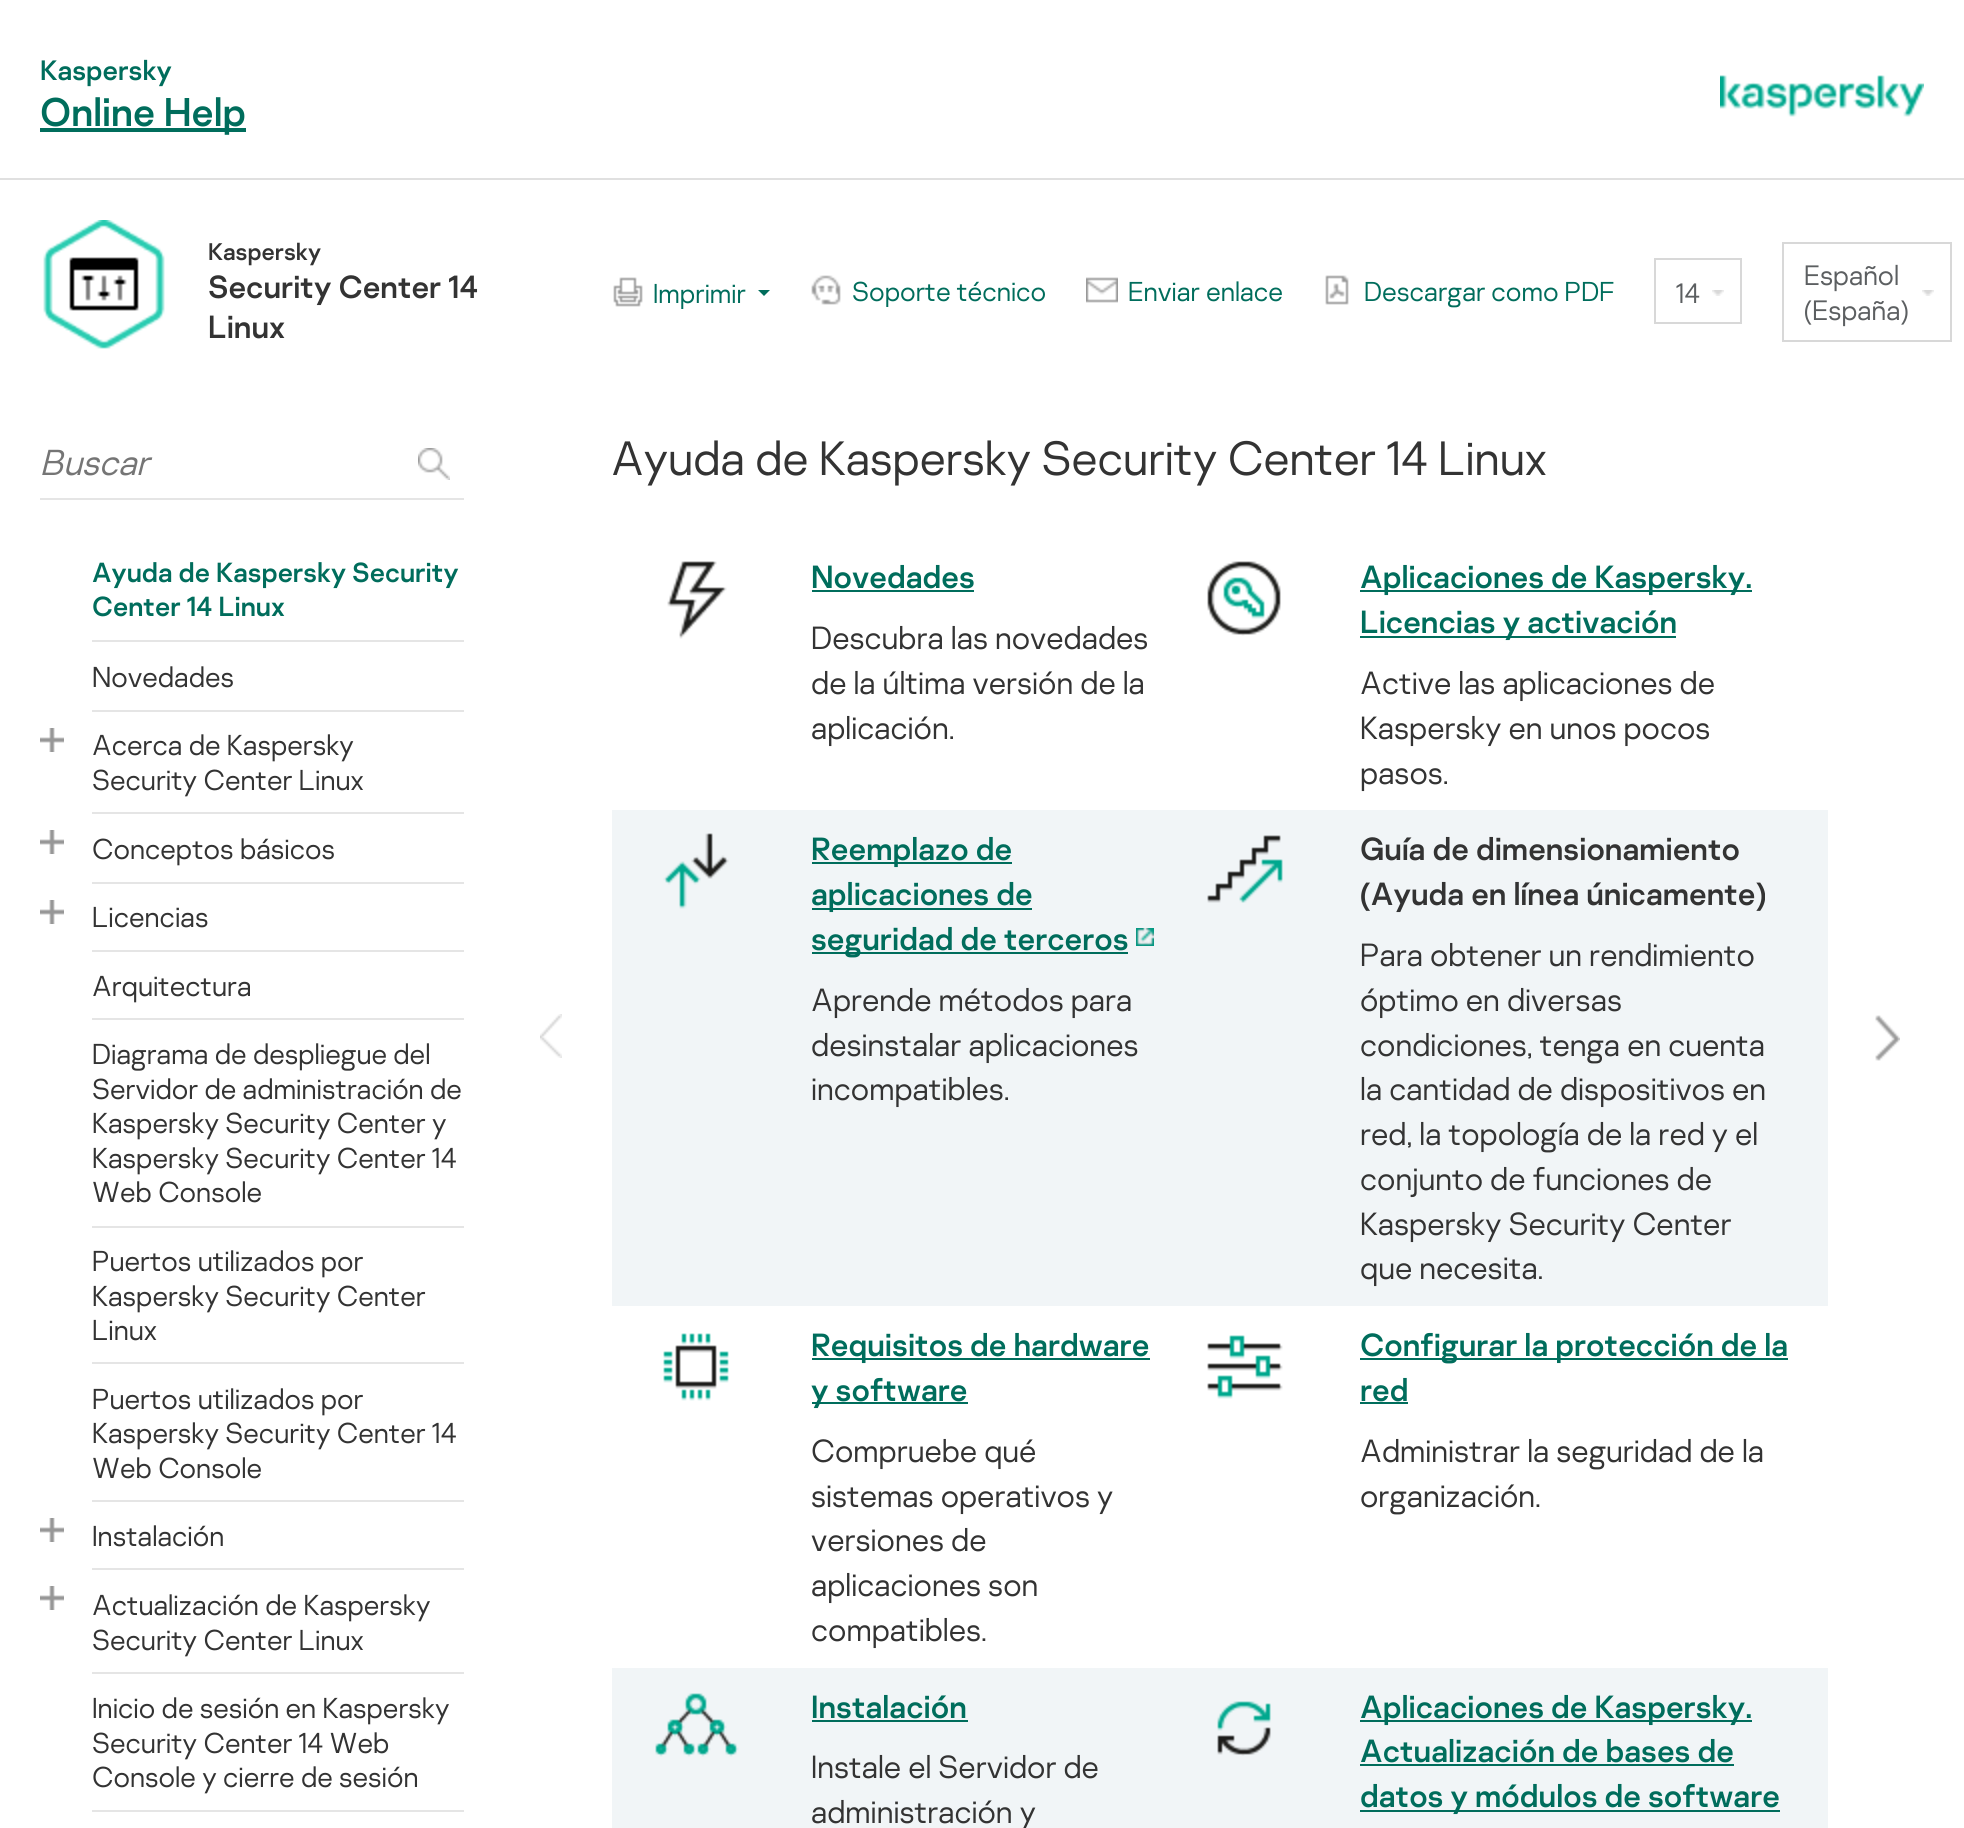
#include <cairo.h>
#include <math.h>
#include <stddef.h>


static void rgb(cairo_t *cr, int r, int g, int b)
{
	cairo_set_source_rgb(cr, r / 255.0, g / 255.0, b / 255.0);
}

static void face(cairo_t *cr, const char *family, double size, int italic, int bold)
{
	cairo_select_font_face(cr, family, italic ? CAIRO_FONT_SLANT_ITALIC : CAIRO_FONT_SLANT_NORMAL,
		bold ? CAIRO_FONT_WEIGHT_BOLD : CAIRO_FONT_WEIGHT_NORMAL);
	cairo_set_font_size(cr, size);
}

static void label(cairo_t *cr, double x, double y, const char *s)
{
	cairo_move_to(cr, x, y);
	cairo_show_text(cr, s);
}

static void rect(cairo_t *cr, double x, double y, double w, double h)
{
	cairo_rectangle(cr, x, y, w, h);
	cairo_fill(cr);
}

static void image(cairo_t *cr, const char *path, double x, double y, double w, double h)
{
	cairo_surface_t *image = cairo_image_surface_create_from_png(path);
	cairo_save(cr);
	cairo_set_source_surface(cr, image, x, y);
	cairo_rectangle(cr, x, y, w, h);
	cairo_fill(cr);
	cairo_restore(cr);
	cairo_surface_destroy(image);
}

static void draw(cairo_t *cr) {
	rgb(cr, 255, 255, 255);
	cairo_paint(cr);
	rgb(cr, 224, 224, 224);
	rect(cr, 0, 178, 1964, 2);
	face(cr, "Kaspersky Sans", 28, 0, 0);
	rgb(cr, 0, 109, 92);
	label(cr, 40, 80, "Kaspersky");
	rect(cr, 40, 128, 206, 4);
	face(cr, "Kaspersky Sans", 40, 0, 0);
	label(cr, 40, 126, "Online Help");
	image(cr, "image0.png", 1720, 75, 204, 42);
	image(cr, "image1.png", 43, 220, 122, 129);
	face(cr, "Kaspersky Sans", 24, 0, 0);
	rgb(cr, 51, 51, 51);
	label(cr, 208, 260, "Kaspersky");
	face(cr, "Kaspersky Sans", 32, 0, 0);
	label(cr, 208, 298, "Security Center 14");
	label(cr, 208, 338, "Linux");
	image(cr, "image2.png", 613, 277, 30, 30);
	face(cr, "Kaspersky Sans Light", 27.25, 0, 0);
	rgb(cr, 0, 109, 92);
	label(cr, 653, 303, "Imprimir");
	cairo_new_path(cr);
	cairo_move_to(cr, 758, 290);
	cairo_line_to(cr, 770, 290);
	cairo_line_to(cr, 764, 296);
	cairo_close_path(cr);
	cairo_fill(cr);
	image(cr, "image3.png", 811, 275, 30, 30);
	label(cr, 852, 301, "Soporte técnico");
	image(cr, "image4.png", 1086, 277, 32, 26);
	label(cr, 1128, 301, "Enviar enlace");
	image(cr, "image5.png", 1325, 275, 24, 30);
	label(cr, 1364, 301, "Descargar como PDF");
	cairo_rectangle(cr, 1655, 259, 86, 64);
	rgb(cr, 216, 216, 216);
	cairo_stroke(cr);
	face(cr, "Kaspersky Sans Light", 28, 0, 0);
	rgb(cr, 92, 95, 97);
	label(cr, 1676, 303, "14");
	image(cr, "image6.png", 1712, 290, 12, 6);
	cairo_rectangle(cr, 1783, 243, 168, 98);
	rgb(cr, 216, 216, 216);
	cairo_stroke(cr);
	rgb(cr, 92, 95, 97);
	label(cr, 1804, 285, "Español");
	image(cr, "image6.png", 1922, 290, 12, 6);
	label(cr, 1804, 320, "(España)");
	rgb(cr, 229, 229, 229);
	rect(cr, 40, 498, 424, 2);
	face(cr, "Kaspersky Sans Light", 36, 1, 0);
	rgb(cr, 117, 117, 117);
	label(cr, 40, 475, "Buscar");
	image(cr, "image7.png", 418, 448, 32, 32);
	rgb(cr, 229, 229, 229);
	rect(cr, 92, 640, 372, 2);
	face(cr, "Kaspersky Sans", 27.6, 0, 0);
	rgb(cr, 0, 109, 92);
	label(cr, 92, 582, "Ayuda de Kaspersky Security");
	label(cr, 92, 616, "Center 14 Linux");
	rgb(cr, 229, 229, 229);
	rect(cr, 92, 710, 372, 2);
	face(cr, "Kaspersky Sans Light", 28.75, 0, 0);
	rgb(cr, 51, 51, 51);
	label(cr, 92, 687, "Novedades");
	image(cr, "image8.png", 40, 728, 24, 24);
	rgb(cr, 229, 229, 229);
	rect(cr, 92, 812, 372, 2);
	rgb(cr, 51, 51, 51);
	label(cr, 92, 755, "Acerca de Kaspersky");
	label(cr, 92, 790, "Security Center Linux");
	image(cr, "image8.png", 40, 830, 24, 24);
	rgb(cr, 229, 229, 229);
	rect(cr, 92, 882, 372, 2);
	rgb(cr, 51, 51, 51);
	label(cr, 92, 859, "Conceptos básicos");
	image(cr, "image8.png", 40, 900, 24, 24);
	rgb(cr, 229, 229, 229);
	rect(cr, 92, 950, 372, 2);
	rgb(cr, 51, 51, 51);
	label(cr, 92, 927, "Licencias");
	rgb(cr, 229, 229, 229);
	rect(cr, 92, 1018, 372, 2);
	rgb(cr, 51, 51, 51);
	label(cr, 92, 996, "Arquitectura");
	rgb(cr, 229, 229, 229);
	rect(cr, 92, 1226, 372, 2);
	rgb(cr, 51, 51, 51);
	label(cr, 92, 1064, "Diagrama de despliegue del");
	label(cr, 92, 1099, "Servidor de administración de");
	label(cr, 92, 1133, "Kaspersky Security Center y");
	label(cr, 92, 1168, "Kaspersky Security Center 14");
	label(cr, 92, 1202, "Web Console");
	rgb(cr, 229, 229, 229);
	rect(cr, 92, 1362, 372, 2);
	rgb(cr, 51, 51, 51);
	label(cr, 92, 1271, "Puertos utilizados por");
	label(cr, 92, 1306, "Kaspersky Security Center");
	label(cr, 92, 1340, "Linux");
	rgb(cr, 229, 229, 229);
	rect(cr, 92, 1500, 372, 2);
	rgb(cr, 51, 51, 51);
	label(cr, 92, 1409, "Puertos utilizados por");
	label(cr, 92, 1443, "Kaspersky Security Center 14");
	label(cr, 92, 1478, "Web Console");
	image(cr, "image8.png", 40, 1518, 24, 24);
	rgb(cr, 229, 229, 229);
	rect(cr, 92, 1568, 372, 2);
	rgb(cr, 51, 51, 51);
	label(cr, 92, 1546, "Instalación");
	image(cr, "image8.png", 40, 1586, 24, 24);
	rgb(cr, 229, 229, 229);
	rect(cr, 92, 1672, 372, 2);
	rgb(cr, 51, 51, 51);
	label(cr, 92, 1615, "Actualización de Kaspersky");
	label(cr, 92, 1650, "Security Center Linux");
	rgb(cr, 229, 229, 229);
	rect(cr, 92, 1810, 372, 2);
	rgb(cr, 51, 51, 51);
	label(cr, 92, 1718, "Inicio de sesión en Kaspersky");
	label(cr, 92, 1753, "Security Center 14 Web");
	label(cr, 92, 1787, "Console y cierre de sesión");
	image(cr, "image9.png", 540, 1014, 22, 44);
	face(cr, "Kaspersky Sans Light", 48, 0, 0);
	label(cr, 611, 475, "Ayuda de Kaspersky Security Center 14 Linux");
	image(cr, "image10.png", 667, 561, 60, 78);
	face(cr, "Kaspersky Sans", 32, 0, 0);
	rgb(cr, 0, 109, 92);
	label(cr, 811, 588, "Novedades");
	rect(cr, 812, 590, 162, 2);
	face(cr, "Kaspersky Sans Light", 32, 0, 0);
	rgb(cr, 51, 51, 51);
	label(cr, 811, 649, "Descubra las novedades");
	label(cr, 811, 694, "de la última versión de la");
	label(cr, 811, 739, "aplicación.");
	image(cr, "image11.png", 1207, 561, 74, 75);
	rgb(cr, 0, 109, 92);
	rect(cr, 1360, 590, 392, 2);
	face(cr, "Kaspersky Sans", 32, 0, 0);
	label(cr, 1360, 588, "Aplicaciones de Kaspersky.");
	rect(cr, 1360, 636, 316, 2);
	label(cr, 1360, 633, "Licencias y activación");
	face(cr, "Kaspersky Sans Light", 32, 0, 0);
	rgb(cr, 51, 51, 51);
	label(cr, 1360, 694, "Active las aplicaciones de");
	label(cr, 1360, 739, "Kaspersky en unos pocos");
	label(cr, 1360, 784, "pasos.");
	rgb(cr, 241, 245, 247);
	rect(cr, 612, 810, 1216, 496);
	image(cr, "image12.png", 663, 833, 66, 76);
	rgb(cr, 0, 109, 92);
	rect(cr, 812, 862, 200, 2);
	face(cr, "Kaspersky Sans", 32, 0, 0);
	label(cr, 811, 860, "Reemplazo de");
	rect(cr, 812, 908, 220, 2);
	label(cr, 811, 905, "aplicaciones de");
	rect(cr, 812, 952, 316, 2);
	label(cr, 811, 950, "seguridad de terceros");
	image(cr, "image13.png", 1136, 928, 18, 18);
	face(cr, "Kaspersky Sans Light", 32, 0, 0);
	rgb(cr, 51, 51, 51);
	label(cr, 811, 1011, "Aprende métodos para");
	label(cr, 811, 1056, "desinstalar aplicaciones");
	label(cr, 811, 1100, "incompatibles.");
	image(cr, "image14.png", 1207, 835, 76, 68);
	face(cr, "Kaspersky Sans", 32, 0, 0);
	label(cr, 1360, 860, "Guía de dimensionamiento");
	label(cr, 1360, 905, "(Ayuda en línea únicamente)");
	face(cr, "Kaspersky Sans Light", 32, 0, 0);
	label(cr, 1360, 966, "Para obtener un rendimiento");
	label(cr, 1360, 1011, "óptimo en diversas");
	label(cr, 1360, 1056, "condiciones, tenga en cuenta");
	label(cr, 1360, 1100, "la cantidad de dispositivos en");
	label(cr, 1360, 1145, "red, la topología de la red y el");
	label(cr, 1360, 1190, "conjunto de funciones de");
	label(cr, 1360, 1235, "Kaspersky Security Center");
	label(cr, 1360, 1279, "que necesita.");
	image(cr, "image15.png", 663, 1333, 66, 68);
	rgb(cr, 0, 109, 92);
	rect(cr, 812, 1358, 338, 2);
	face(cr, "Kaspersky Sans", 32, 0, 0);
	label(cr, 811, 1356, "Requisitos de hardware");
	rect(cr, 812, 1402, 156, 2);
	label(cr, 811, 1401, "y software");
	face(cr, "Kaspersky Sans Light", 32, 0, 0);
	rgb(cr, 51, 51, 51);
	label(cr, 811, 1462, "Compruebe qué");
	label(cr, 811, 1507, "sistemas operativos y");
	label(cr, 811, 1551, "versiones de");
	label(cr, 811, 1596, "aplicaciones son");
	label(cr, 811, 1641, "compatibles.");
	image(cr, "image16.png", 1207, 1335, 76, 64);
	rgb(cr, 0, 109, 92);
	rect(cr, 1360, 1358, 428, 2);
	face(cr, "Kaspersky Sans", 32, 0, 0);
	label(cr, 1360, 1356, "Configurar la protección de la");
	label(cr, 1360, 1401, "red");
	rect(cr, 1360, 1402, 48, 2);
	face(cr, "Kaspersky Sans Light", 32, 0, 0);
	rgb(cr, 51, 51, 51);
	label(cr, 1360, 1462, "Administrar la seguridad de la");
	label(cr, 1360, 1507, "organización.");
	rgb(cr, 241, 245, 247);
	rect(cr, 612, 1668, 1216, 160);
	image(cr, "image17.png", 655, 1693, 84, 64);
	face(cr, "Kaspersky Sans", 32, 0, 0);
	rgb(cr, 0, 109, 92);
	label(cr, 811, 1718, "Instalación");
	rect(cr, 812, 1720, 156, 2);
	face(cr, "Kaspersky Sans Light", 32, 0, 0);
	rgb(cr, 51, 51, 51);
	label(cr, 811, 1778, "Instale el Servidor de");
	label(cr, 811, 1823, "administración y");
	image(cr, "image18.png", 1217, 1701, 54, 55);
	rgb(cr, 0, 109, 92);
	rect(cr, 1360, 1720, 392, 2);
	face(cr, "Kaspersky Sans", 32, 0, 0);
	label(cr, 1360, 1718, "Aplicaciones de Kaspersky.");
	label(cr, 1360, 1762, "Actualización de bases de");
	rect(cr, 1360, 1764, 374, 2);
	rect(cr, 1360, 1810, 420, 2);
	label(cr, 1360, 1807, "datos y módulos de software");
	image(cr, "image19.png", 1875, 1015, 25, 46);
}

int main(void) {
	cairo_surface_t *surface = cairo_image_surface_create(CAIRO_FORMAT_RGB24, 1964, 1828);
	cairo_t *cr = cairo_create(surface);
	cairo_font_options_t *options = cairo_font_options_create();
	cairo_font_options_set_hint_metrics(options, CAIRO_HINT_METRICS_OFF);
	cairo_font_options_set_hint_style(options, CAIRO_HINT_STYLE_NONE);
	cairo_set_font_options(cr, options);
	cairo_set_miter_limit(cr, 4);
	draw(cr);
	cairo_surface_write_to_png(surface, "render.png");
	cairo_font_options_destroy(options);
	cairo_destroy(cr);
	cairo_surface_destroy(surface);
	return 0;
}
